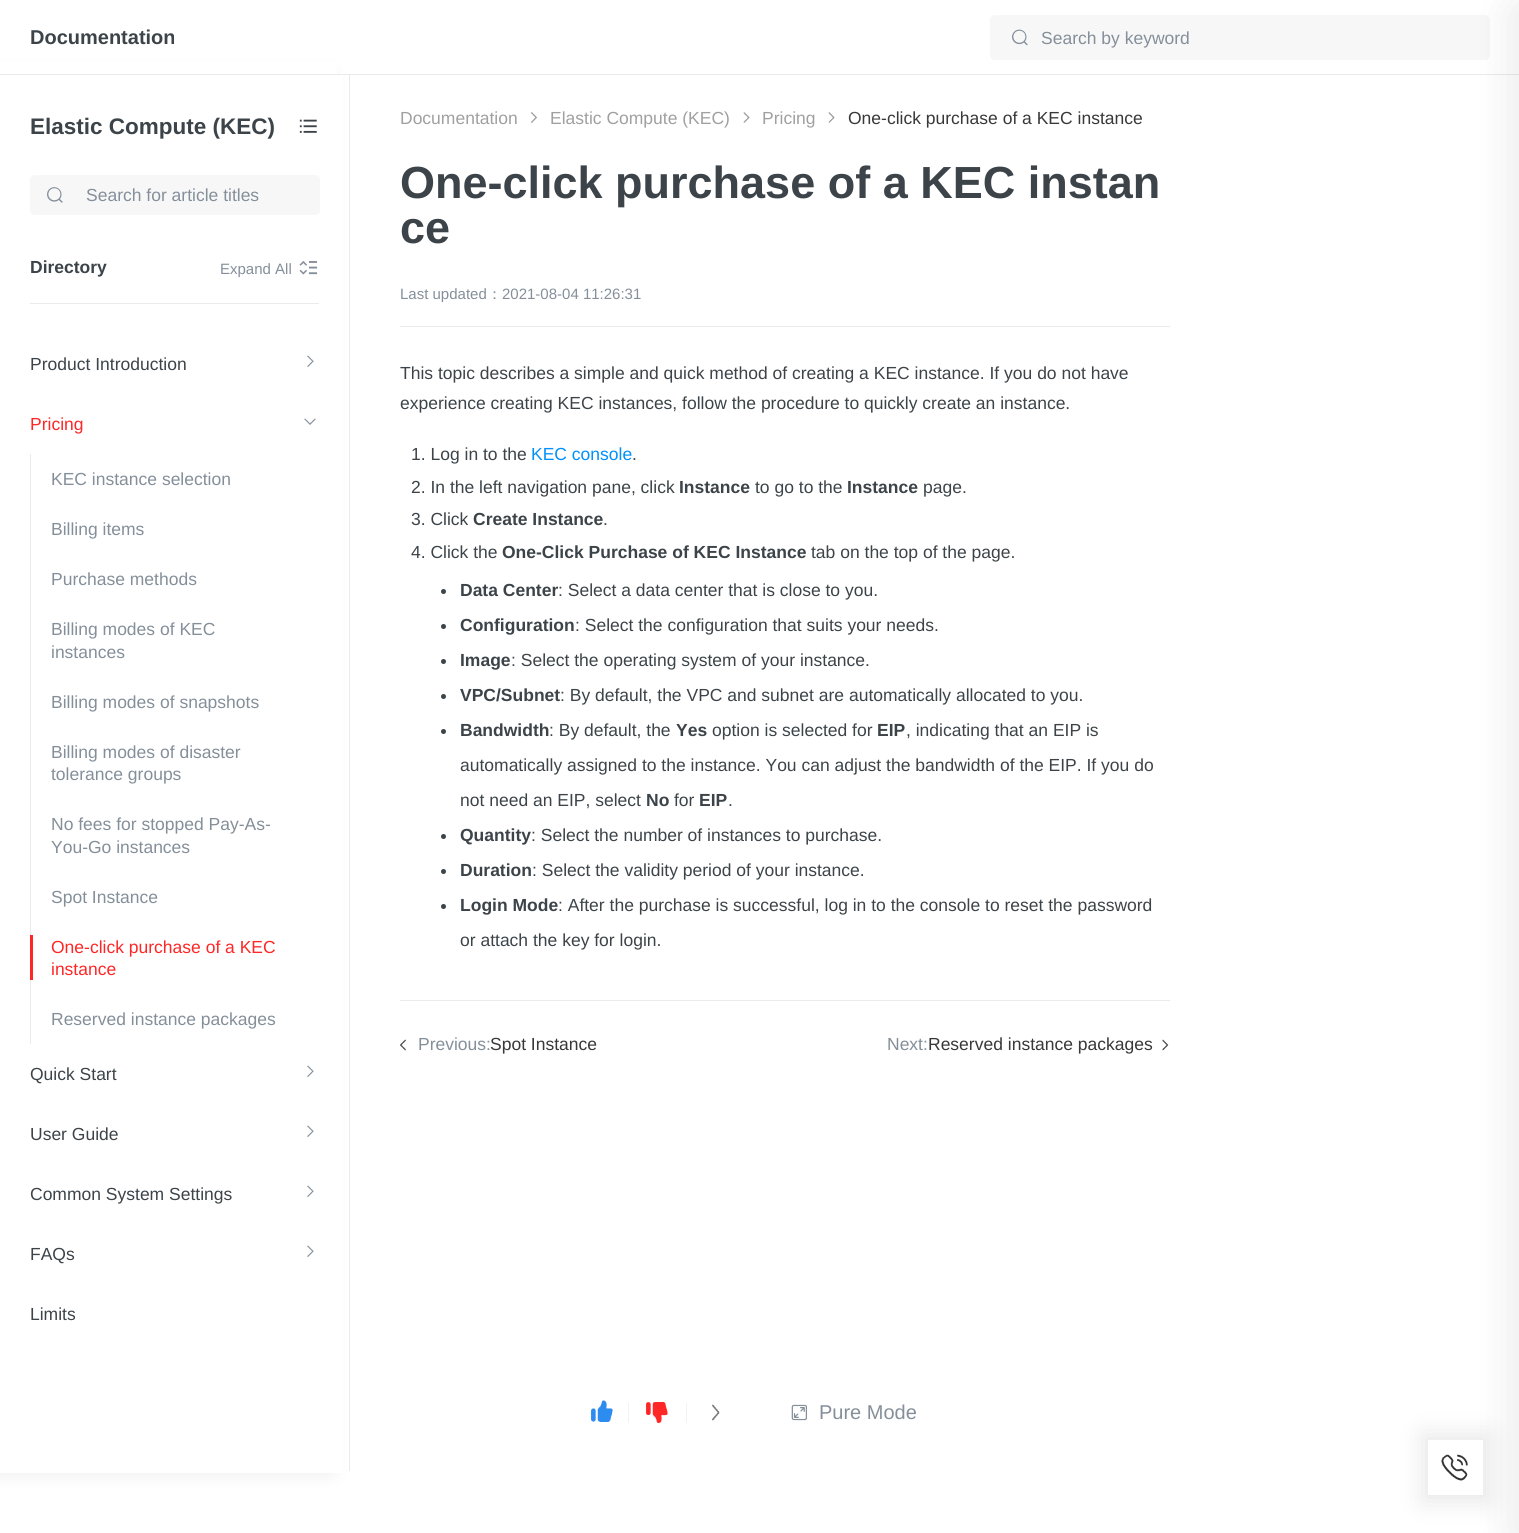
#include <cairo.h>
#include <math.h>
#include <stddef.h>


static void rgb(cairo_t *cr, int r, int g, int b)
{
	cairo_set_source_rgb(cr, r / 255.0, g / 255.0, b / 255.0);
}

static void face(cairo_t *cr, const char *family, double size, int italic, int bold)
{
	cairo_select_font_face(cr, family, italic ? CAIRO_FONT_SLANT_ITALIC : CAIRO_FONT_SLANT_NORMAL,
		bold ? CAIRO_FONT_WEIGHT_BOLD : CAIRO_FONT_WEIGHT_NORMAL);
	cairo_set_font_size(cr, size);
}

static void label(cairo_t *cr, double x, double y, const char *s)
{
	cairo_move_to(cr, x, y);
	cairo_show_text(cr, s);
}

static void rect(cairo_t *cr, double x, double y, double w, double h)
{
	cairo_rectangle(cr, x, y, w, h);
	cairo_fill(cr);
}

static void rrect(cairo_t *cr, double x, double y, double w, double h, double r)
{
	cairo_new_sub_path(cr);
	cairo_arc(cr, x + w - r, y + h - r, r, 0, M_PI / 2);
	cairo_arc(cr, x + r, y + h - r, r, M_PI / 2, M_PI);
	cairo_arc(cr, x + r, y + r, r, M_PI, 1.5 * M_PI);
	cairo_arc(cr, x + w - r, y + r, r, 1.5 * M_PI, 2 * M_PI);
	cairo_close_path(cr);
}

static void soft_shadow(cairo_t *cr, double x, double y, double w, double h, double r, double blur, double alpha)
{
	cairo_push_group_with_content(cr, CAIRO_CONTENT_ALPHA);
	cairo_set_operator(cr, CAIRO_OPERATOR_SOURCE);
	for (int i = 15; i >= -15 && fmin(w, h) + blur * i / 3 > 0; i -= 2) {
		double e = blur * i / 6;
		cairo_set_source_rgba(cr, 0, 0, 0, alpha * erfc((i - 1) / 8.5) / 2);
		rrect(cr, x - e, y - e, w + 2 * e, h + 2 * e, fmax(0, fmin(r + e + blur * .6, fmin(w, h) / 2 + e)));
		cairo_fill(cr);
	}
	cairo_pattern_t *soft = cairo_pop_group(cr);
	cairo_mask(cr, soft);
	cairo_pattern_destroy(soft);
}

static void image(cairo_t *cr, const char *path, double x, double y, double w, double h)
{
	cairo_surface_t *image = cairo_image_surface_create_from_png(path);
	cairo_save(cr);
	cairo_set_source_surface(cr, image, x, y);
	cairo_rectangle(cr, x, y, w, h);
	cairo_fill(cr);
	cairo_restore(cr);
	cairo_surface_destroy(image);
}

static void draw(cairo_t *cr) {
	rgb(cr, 255, 255, 255);
	cairo_paint(cr);
	rgb(cr, 234, 234, 234);
	rect(cr, 349, 75, 1, 1396);
	rgb(cr, 0, 0, 0);
	soft_shadow(cr, -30, 75, 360, 1396, 0, 10, 0.1);
	rgb(cr, 255, 255, 255);
	rect(cr, 0, 62, 337, 12);
	rgb(cr, 234, 234, 234);
	rect(cr, 0, 74, 1519, 1);
	face(cr, "Liberation Sans", 20, 0, 1);
	rgb(cr, 60, 68, 73);
	label(cr, 30, 44, "Documentation");
	rgb(cr, 247, 247, 247);
	rrect(cr, 990, 15, 500, 45, 5);
	cairo_fill(cr);
	image(cr, "image0.png", 1012, 29, 16, 17);
	face(cr, "Liberation Sans", 17.5, 0, 0);
	rgb(cr, 132, 143, 154);
	label(cr, 1041, 44, "Search by keyword");
	rgb(cr, 0, 0, 0);
	soft_shadow(cr, 1423, 1435, 65, 66, 0, 12.5, 0.1);
	rgb(cr, 238, 238, 238);
	rect(cr, 1428, 1495, 55, 1);
	rgb(cr, 255, 255, 255);
	rect(cr, 1428, 1440, 55, 55);
	image(cr, "image15.png", 1441, 1454, 27, 27);
	rgb(cr, 0, 0, 0);
	soft_shadow(cr, 1510, 0, 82, 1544, 13, 20, 0.08);
	rgb(cr, 255, 255, 255);
	rect(cr, 0, 75, 343, 1398);
	face(cr, "Liberation Sans", 22.5, 0, 1);
	rgb(cr, 60, 68, 73);
	label(cr, 30, 134, "Elastic Compute (KEC)");
	image(cr, "image1.png", 299, 119, 18, 14);
	rgb(cr, 247, 247, 247);
	rrect(cr, 30, 175, 290, 40, 5);
	cairo_fill(cr);
	image(cr, "image2.png", 47, 187, 16, 16);
	face(cr, "Liberation Sans", 17.5, 0, 0);
	rgb(cr, 132, 143, 154);
	label(cr, 86, 201, "Search for article titles");
	rgb(cr, 234, 234, 234);
	rect(cr, 30, 303, 289, 1);
	face(cr, "Liberation Sans", 17.5, 0, 1);
	rgb(cr, 60, 68, 73);
	label(cr, 30, 273, "Directory");
	face(cr, "Liberation Sans", 15, 0, 0);
	rgb(cr, 132, 143, 154);
	label(cr, 220, 274, "Expand All");
	image(cr, "image3.png", 299, 261, 19, 14);
	face(cr, "Liberation Sans", 17.5, 0, 0);
	rgb(cr, 60, 68, 73);
	label(cr, 30, 370, "Product Introduction");
	image(cr, "image4.png", 307, 355, 7, 12);
	rgb(cr, 255, 38, 38);
	label(cr, 30, 430, "Pricing");
	image(cr, "image5.png", 304, 418, 12, 7);
	rgb(cr, 234, 234, 234);
	rect(cr, 30, 454, 1, 590);
	rgb(cr, 132, 143, 154);
	label(cr, 51, 485, "KEC instance selection");
	label(cr, 51, 535, "Billing items");
	label(cr, 51, 585, "Purchase methods");
	label(cr, 51, 635, "Billing modes of KEC");
	label(cr, 51, 658, "instances");
	label(cr, 51, 708, "Billing modes of snapshots");
	label(cr, 51, 758, "Billing modes of disaster");
	label(cr, 51, 780, "tolerance groups");
	label(cr, 51, 830, "No fees for stopped Pay-As-");
	label(cr, 51, 853, "You-Go instances");
	label(cr, 51, 903, "Spot Instance");
	rgb(cr, 255, 38, 38);
	rect(cr, 30, 935, 3, 45);
	label(cr, 51, 953, "One-click purchase of a KEC");
	label(cr, 51, 975, "instance");
	rgb(cr, 132, 143, 154);
	label(cr, 51, 1025, "Reserved instance packages");
	rgb(cr, 60, 68, 73);
	label(cr, 30, 1080, "Quick Start");
	image(cr, "image4.png", 307, 1065, 7, 12);
	label(cr, 30, 1140, "User Guide");
	image(cr, "image4.png", 307, 1125, 7, 12);
	label(cr, 30, 1200, "Common System Settings");
	image(cr, "image4.png", 307, 1185, 7, 12);
	label(cr, 30, 1260, "FAQs");
	image(cr, "image4.png", 307, 1245, 7, 12);
	label(cr, 30, 1320, "Limits");
	rgb(cr, 160, 160, 160);
	label(cr, 400, 124, "Documentation");
	image(cr, "image6.png", 530, 112, 8, 11);
	label(cr, 550, 124, "Elastic Compute (KEC)");
	image(cr, "image7.png", 743, 112, 7, 11);
	label(cr, 762, 124, "Pricing");
	image(cr, "image8.png", 828, 112, 7, 11);
	rgb(cr, 56, 56, 56);
	label(cr, 848, 124, "One-click purchase of a KEC instance");
	face(cr, "Liberation Sans", 45, 0, 1);
	rgb(cr, 60, 68, 73);
	label(cr, 400, 198, "One-click purchase of a KEC instan");
	label(cr, 400, 243, "ce");
	rgb(cr, 234, 234, 234);
	rect(cr, 400, 326, 770, 1);
	face(cr, "Liberation Sans", 15, 0, 0);
	rgb(cr, 132, 143, 154);
	label(cr, 400, 299, "Last updated");
	face(cr, "WenQuanYi Zen Hei Medium", 15, 0, 0);
	label(cr, 487, 299, "：");
	face(cr, "Liberation Sans", 15, 0, 0);
	label(cr, 502, 299, "2021-08-04 11:26:31");
	face(cr, "Liberation Sans", 17.5, 0, 0);
	rgb(cr, 60, 68, 73);
	label(cr, 400, 379, "This topic describes a simple and quick method of creating a KEC instance. If you do not have");
	label(cr, 400, 409, "experience creating KEC instances, follow the procedure to quickly create an instance.");
	label(cr, 411, 460, "1. Log in to the");
	rgb(cr, 0, 145, 250);
	label(cr, 531, 460, "KEC console");
	rgb(cr, 60, 68, 73);
	label(cr, 632, 460, ".");
	label(cr, 411, 493, "2. In the left navigation pane, click");
	face(cr, "Liberation Sans", 17.5, 0, 1);
	label(cr, 679, 493, "Instance");
	face(cr, "Liberation Sans", 17.5, 0, 0);
	label(cr, 755, 493, "to go to the");
	face(cr, "Liberation Sans", 17.5, 0, 1);
	label(cr, 847, 493, "Instance");
	face(cr, "Liberation Sans", 17.5, 0, 0);
	label(cr, 923, 493, "page.");
	label(cr, 411, 525, "3. Click");
	face(cr, "Liberation Sans", 17.5, 0, 1);
	label(cr, 473, 525, "Create Instance");
	face(cr, "Liberation Sans", 17.5, 0, 0);
	label(cr, 603, 525, ".");
	label(cr, 411, 558, "4. Click the");
	face(cr, "Liberation Sans", 17.5, 0, 1);
	label(cr, 502, 558, "One-Click Purchase of KEC Instance");
	face(cr, "Liberation Sans", 17.5, 0, 0);
	label(cr, 811, 558, "tab on the top of the page.");
	cairo_new_path(cr);
	cairo_arc(cr, 443.5, 591.5, 2.5, 0, 2 * M_PI);
	cairo_fill(cr);
	face(cr, "Liberation Sans", 17.5, 0, 1);
	label(cr, 460, 596, "Data Center");
	face(cr, "Liberation Sans", 17.5, 0, 0);
	label(cr, 558, 596, ": Select a data center that is close to you.");
	cairo_new_path(cr);
	cairo_arc(cr, 443.5, 626.5, 2.5, 0, 2 * M_PI);
	cairo_fill(cr);
	face(cr, "Liberation Sans", 17.5, 0, 1);
	label(cr, 460, 631, "Configuration");
	face(cr, "Liberation Sans", 17.5, 0, 0);
	label(cr, 575, 631, ": Select the configuration that suits your needs.");
	cairo_new_path(cr);
	cairo_arc(cr, 443.5, 661.5, 2.5, 0, 2 * M_PI);
	cairo_fill(cr);
	face(cr, "Liberation Sans", 17.5, 0, 1);
	label(cr, 460, 666, "Image");
	face(cr, "Liberation Sans", 17.5, 0, 0);
	label(cr, 511, 666, ": Select the operating system of your instance.");
	cairo_new_path(cr);
	cairo_arc(cr, 443.5, 696.5, 2.5, 0, 2 * M_PI);
	cairo_fill(cr);
	face(cr, "Liberation Sans", 17.5, 0, 1);
	label(cr, 460, 701, "VPC/Subnet");
	face(cr, "Liberation Sans", 17.5, 0, 0);
	label(cr, 560, 701, ": By default, the VPC and subnet are automatically allocated to you.");
	cairo_new_path(cr);
	cairo_arc(cr, 443.5, 731.5, 2.5, 0, 2 * M_PI);
	cairo_fill(cr);
	face(cr, "Liberation Sans", 17.5, 0, 1);
	label(cr, 460, 736, "Bandwidth");
	face(cr, "Liberation Sans", 17.5, 0, 0);
	label(cr, 549, 736, ": By default, the");
	face(cr, "Liberation Sans", 17.5, 0, 1);
	label(cr, 676, 736, "Yes");
	face(cr, "Liberation Sans", 17.5, 0, 0);
	label(cr, 712, 736, "option is selected for");
	face(cr, "Liberation Sans", 17.5, 0, 1);
	label(cr, 877, 736, "EIP");
	face(cr, "Liberation Sans", 17.5, 0, 0);
	label(cr, 906, 736, ", indicating that an EIP is");
	label(cr, 460, 771, "automatically assigned to the instance. You can adjust the bandwidth of the EIP. If you do");
	label(cr, 460, 806, "not need an EIP, select");
	face(cr, "Liberation Sans", 17.5, 0, 1);
	label(cr, 646, 806, "No");
	face(cr, "Liberation Sans", 17.5, 0, 0);
	label(cr, 674, 806, "for");
	face(cr, "Liberation Sans", 17.5, 0, 1);
	label(cr, 699, 806, "EIP");
	face(cr, "Liberation Sans", 17.5, 0, 0);
	label(cr, 728, 806, ".");
	cairo_new_path(cr);
	cairo_arc(cr, 443.5, 836.5, 2.5, 0, 2 * M_PI);
	cairo_fill(cr);
	face(cr, "Liberation Sans", 17.5, 0, 1);
	label(cr, 460, 841, "Quantity");
	face(cr, "Liberation Sans", 17.5, 0, 0);
	label(cr, 531, 841, ": Select the number of instances to purchase.");
	cairo_new_path(cr);
	cairo_arc(cr, 443.5, 871.5, 2.5, 0, 2 * M_PI);
	cairo_fill(cr);
	face(cr, "Liberation Sans", 17.5, 0, 1);
	label(cr, 460, 876, "Duration");
	face(cr, "Liberation Sans", 17.5, 0, 0);
	label(cr, 532, 876, ": Select the validity period of your instance.");
	cairo_new_path(cr);
	cairo_arc(cr, 443.5, 906.5, 2.5, 0, 2 * M_PI);
	cairo_fill(cr);
	face(cr, "Liberation Sans", 17.5, 0, 1);
	label(cr, 460, 911, "Login Mode");
	face(cr, "Liberation Sans", 17.5, 0, 0);
	label(cr, 558, 911, ": After the purchase is successful, log in to the console to reset the password");
	label(cr, 460, 946, "or attach the key for login.");
	rgb(cr, 234, 234, 234);
	rect(cr, 400, 1000, 770, 1);
	image(cr, "image9.png", 400, 1039, 7, 12);
	rgb(cr, 132, 143, 154);
	label(cr, 418, 1050, "Previous:");
	rgb(cr, 56, 56, 56);
	label(cr, 490, 1050, "Spot Instance");
	rgb(cr, 132, 143, 154);
	label(cr, 887, 1050, "Next:");
	rgb(cr, 56, 56, 56);
	label(cr, 928, 1050, "Reserved instance packages");
	image(cr, "image10.png", 1162, 1039, 7, 12);
	image(cr, "image11.png", 591, 1400, 22, 22);
	image(cr, "image12.png", 646, 1402, 22, 21);
	rgb(cr, 240, 242, 243);
	rect(cr, 628, 1403, 1, 20);
	rect(cr, 686, 1403, 1, 20);
	image(cr, "image13.png", 712, 1404, 8, 17);
	image(cr, "image14.png", 791, 1404, 16, 17);
	face(cr, "Liberation Sans", 20, 0, 0);
	rgb(cr, 132, 143, 154);
	label(cr, 819, 1419, "Pure Mode");
}

int main(void) {
	cairo_surface_t *surface = cairo_image_surface_create(CAIRO_FORMAT_RGB24, 1519, 1533);
	cairo_t *cr = cairo_create(surface);
	cairo_font_options_t *options = cairo_font_options_create();
	cairo_font_options_set_hint_metrics(options, CAIRO_HINT_METRICS_OFF);
	cairo_font_options_set_hint_style(options, CAIRO_HINT_STYLE_NONE);
	cairo_set_font_options(cr, options);
	cairo_set_miter_limit(cr, 4);
	draw(cr);
	cairo_surface_write_to_png(surface, "render.png");
	cairo_font_options_destroy(options);
	cairo_destroy(cr);
	cairo_surface_destroy(surface);
	return 0;
}
